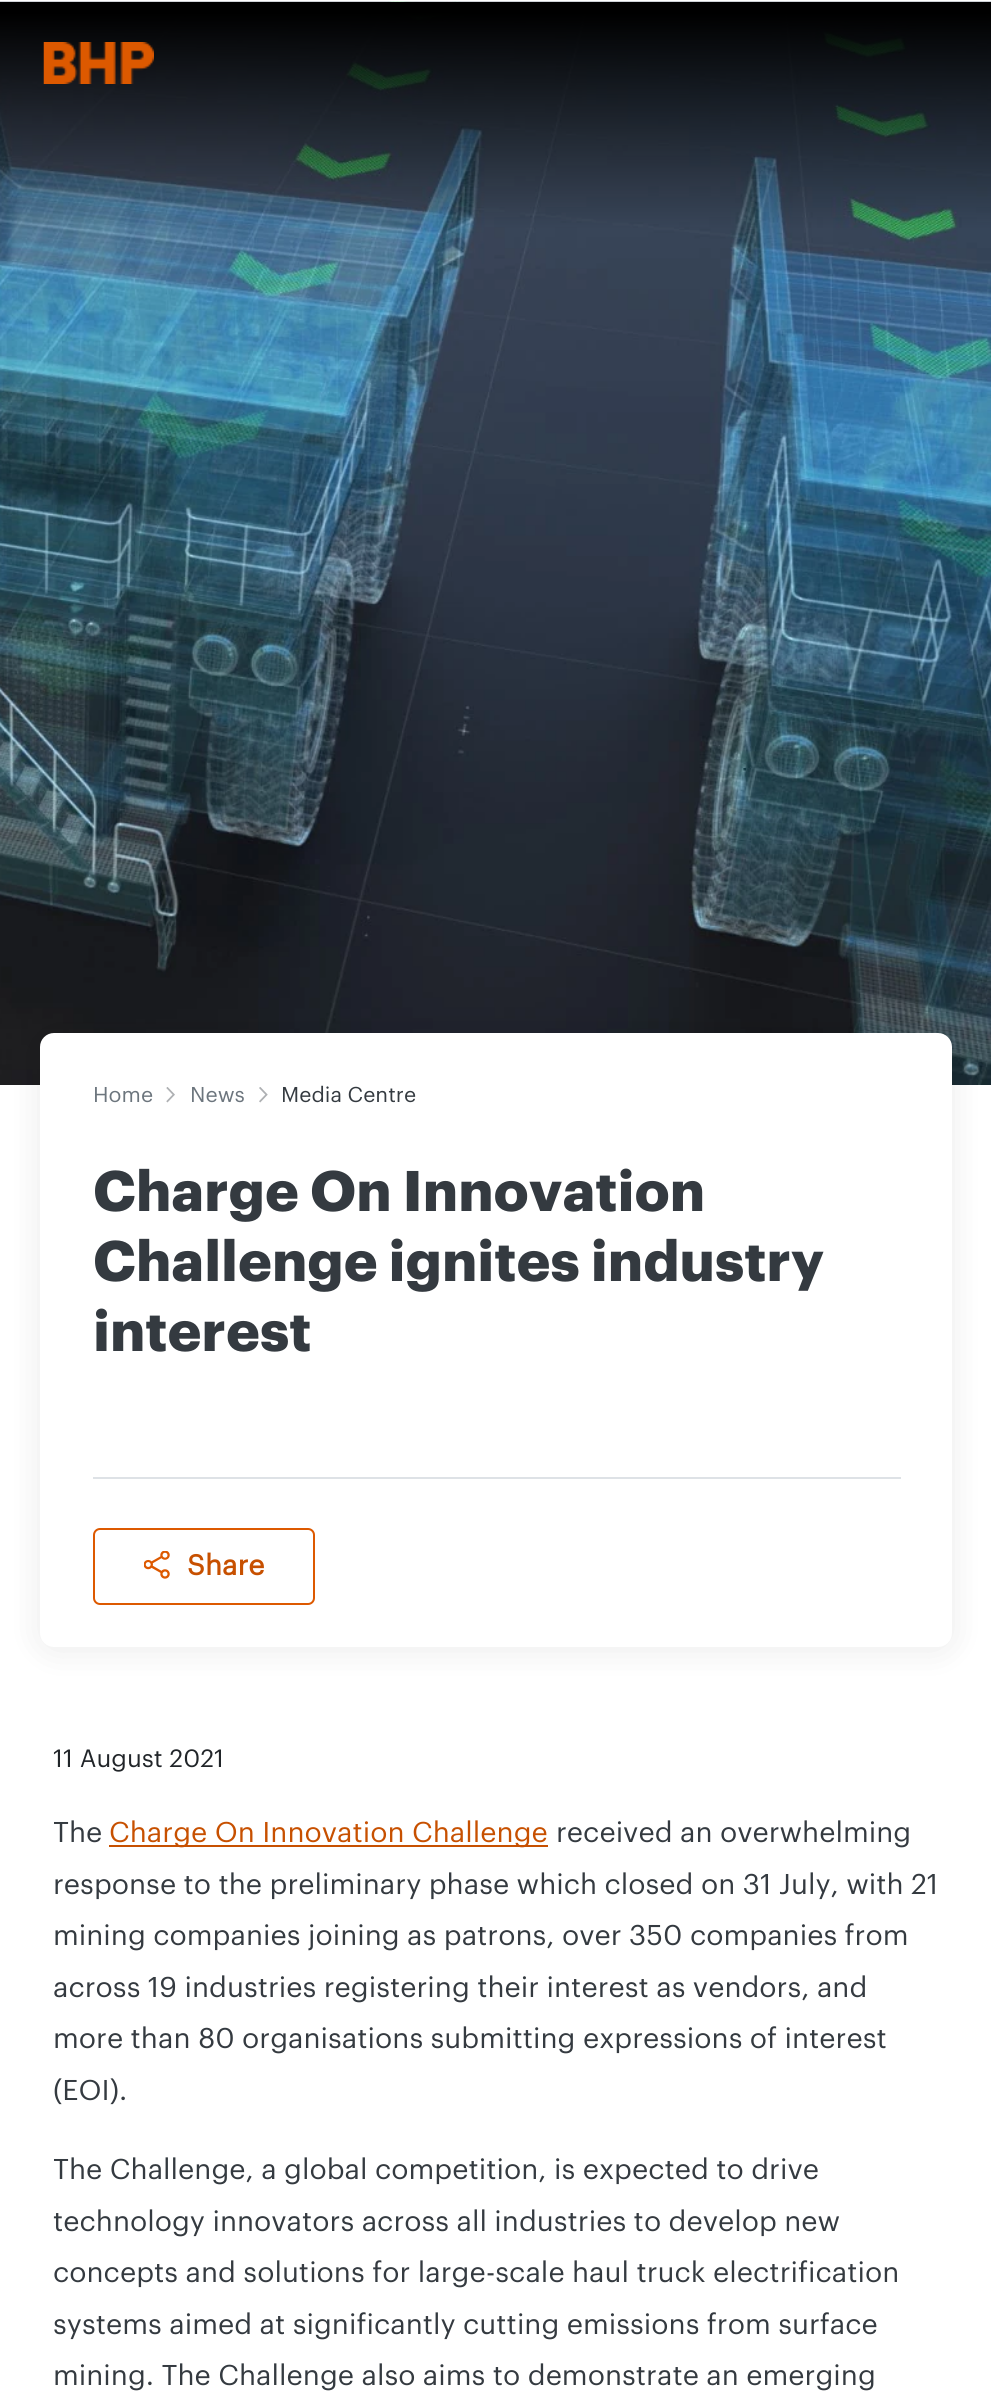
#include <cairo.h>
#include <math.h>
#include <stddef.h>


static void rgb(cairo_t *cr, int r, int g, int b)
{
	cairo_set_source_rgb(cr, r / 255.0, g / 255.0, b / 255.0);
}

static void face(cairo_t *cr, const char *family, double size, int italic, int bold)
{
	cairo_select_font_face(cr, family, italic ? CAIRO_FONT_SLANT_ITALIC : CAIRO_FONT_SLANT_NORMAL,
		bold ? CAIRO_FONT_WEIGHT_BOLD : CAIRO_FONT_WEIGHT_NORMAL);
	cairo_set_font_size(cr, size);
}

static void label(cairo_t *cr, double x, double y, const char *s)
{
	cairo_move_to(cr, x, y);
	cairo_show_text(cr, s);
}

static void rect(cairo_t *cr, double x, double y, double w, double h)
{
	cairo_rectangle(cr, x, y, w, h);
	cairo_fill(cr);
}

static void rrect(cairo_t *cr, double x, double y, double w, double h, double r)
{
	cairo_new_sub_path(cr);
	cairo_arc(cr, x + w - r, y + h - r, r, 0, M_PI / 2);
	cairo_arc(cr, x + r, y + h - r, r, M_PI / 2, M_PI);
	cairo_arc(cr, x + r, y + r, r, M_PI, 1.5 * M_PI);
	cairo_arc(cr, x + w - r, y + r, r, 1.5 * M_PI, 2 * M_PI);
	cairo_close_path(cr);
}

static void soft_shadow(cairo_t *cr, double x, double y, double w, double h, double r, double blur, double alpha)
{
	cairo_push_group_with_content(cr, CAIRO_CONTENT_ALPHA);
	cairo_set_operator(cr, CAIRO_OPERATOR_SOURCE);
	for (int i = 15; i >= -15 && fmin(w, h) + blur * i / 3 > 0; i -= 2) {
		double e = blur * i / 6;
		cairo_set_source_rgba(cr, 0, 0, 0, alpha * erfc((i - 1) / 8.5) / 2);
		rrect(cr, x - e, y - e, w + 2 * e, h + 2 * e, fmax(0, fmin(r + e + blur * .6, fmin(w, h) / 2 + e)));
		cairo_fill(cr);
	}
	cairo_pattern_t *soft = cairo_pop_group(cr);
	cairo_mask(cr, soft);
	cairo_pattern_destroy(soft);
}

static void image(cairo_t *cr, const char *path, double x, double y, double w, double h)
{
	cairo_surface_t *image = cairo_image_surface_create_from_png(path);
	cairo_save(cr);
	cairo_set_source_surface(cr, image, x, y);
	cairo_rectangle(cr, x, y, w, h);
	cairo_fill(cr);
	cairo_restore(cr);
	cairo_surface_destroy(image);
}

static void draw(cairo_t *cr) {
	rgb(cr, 255, 255, 255);
	cairo_paint(cr);
	image(cr, "image1.png", 0, 1, 991, 1084);
	image(cr, "image0.png", 43, 42, 111, 42);
	rgb(cr, 0, 0, 0);
	soft_shadow(cr, 40, 1036, 912, 614, 14, 17.5, 0.08);
	rgb(cr, 255, 255, 255);
	rrect(cr, 40, 1033, 912, 614, 14);
	cairo_fill(cr);
	face(cr, "Graphik", 21, 0, 0);
	rgb(cr, 108, 117, 125);
	label(cr, 93, 1102, "Home");
	image(cr, "image2.png", 166, 1087, 9, 16);
	label(cr, 190, 1102, "News");
	image(cr, "image3.png", 259, 1087, 9, 16);
	rgb(cr, 52, 58, 64);
	label(cr, 281, 1102, "Media Centre");
	face(cr, "Graphik", 56, 0, 1);
	label(cr, 93, 1211, "Charge On Innovation");
	label(cr, 93, 1281, "Challenge ignites industry");
	label(cr, 93, 1351, "interest");
	rgb(cr, 222, 226, 230);
	rect(cr, 93, 1477, 808, 2);
	rrect(cr, 94, 1529, 220, 75, 6);
	rgb(cr, 221, 89, 0);
	cairo_stroke(cr);
	image(cr, "image4.png", 144, 1551, 26, 28);
	face(cr, "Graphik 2", 28, 0, 1);
	rgb(cr, 199, 80, 0);
	label(cr, 187, 1575, "Share");
	face(cr, "Graphik", 24.5, 0, 0);
	rgb(cr, 33, 37, 41);
	label(cr, 53, 1767, "11 August 2021");
	face(cr, "Graphik", 28, 0, 0);
	rgb(cr, 52, 58, 64);
	label(cr, 53, 1842, "The");
	rgb(cr, 199, 80, 0);
	rect(cr, 109, 1845, 439, 2);
	label(cr, 109, 1842, "Charge On Innovation Challenge");
	rgb(cr, 52, 58, 64);
	label(cr, 556, 1842, "received an overwhelming");
	label(cr, 53, 1894, "response to the preliminary phase which closed on 31 July, with 21");
	label(cr, 53, 1945, "mining companies joining as patrons, over 350 companies from");
	label(cr, 53, 1997, "across 19 industries registering their interest as vendors, and");
	label(cr, 53, 2048, "more than 80 organisations submitting expressions of interest");
	label(cr, 53, 2100, "(EOI).");
	label(cr, 53, 2179, "The Challenge, a global competition, is expected to drive");
	label(cr, 53, 2231, "technology innovators across all industries to develop new");
	label(cr, 53, 2282, "concepts and solutions for large-scale haul truck electrification");
	label(cr, 53, 2334, "systems aimed at significantly cutting emissions from surface");
	label(cr, 53, 2385, "mining. The Challenge also aims to demonstrate an emerging");
}

int main(void) {
	cairo_surface_t *surface = cairo_image_surface_create(CAIRO_FORMAT_RGB24, 991, 2406);
	cairo_t *cr = cairo_create(surface);
	cairo_font_options_t *options = cairo_font_options_create();
	cairo_font_options_set_hint_metrics(options, CAIRO_HINT_METRICS_OFF);
	cairo_font_options_set_hint_style(options, CAIRO_HINT_STYLE_NONE);
	cairo_set_font_options(cr, options);
	cairo_set_miter_limit(cr, 4);
	draw(cr);
	cairo_surface_write_to_png(surface, "render.png");
	cairo_font_options_destroy(options);
	cairo_destroy(cr);
	cairo_surface_destroy(surface);
	return 0;
}
